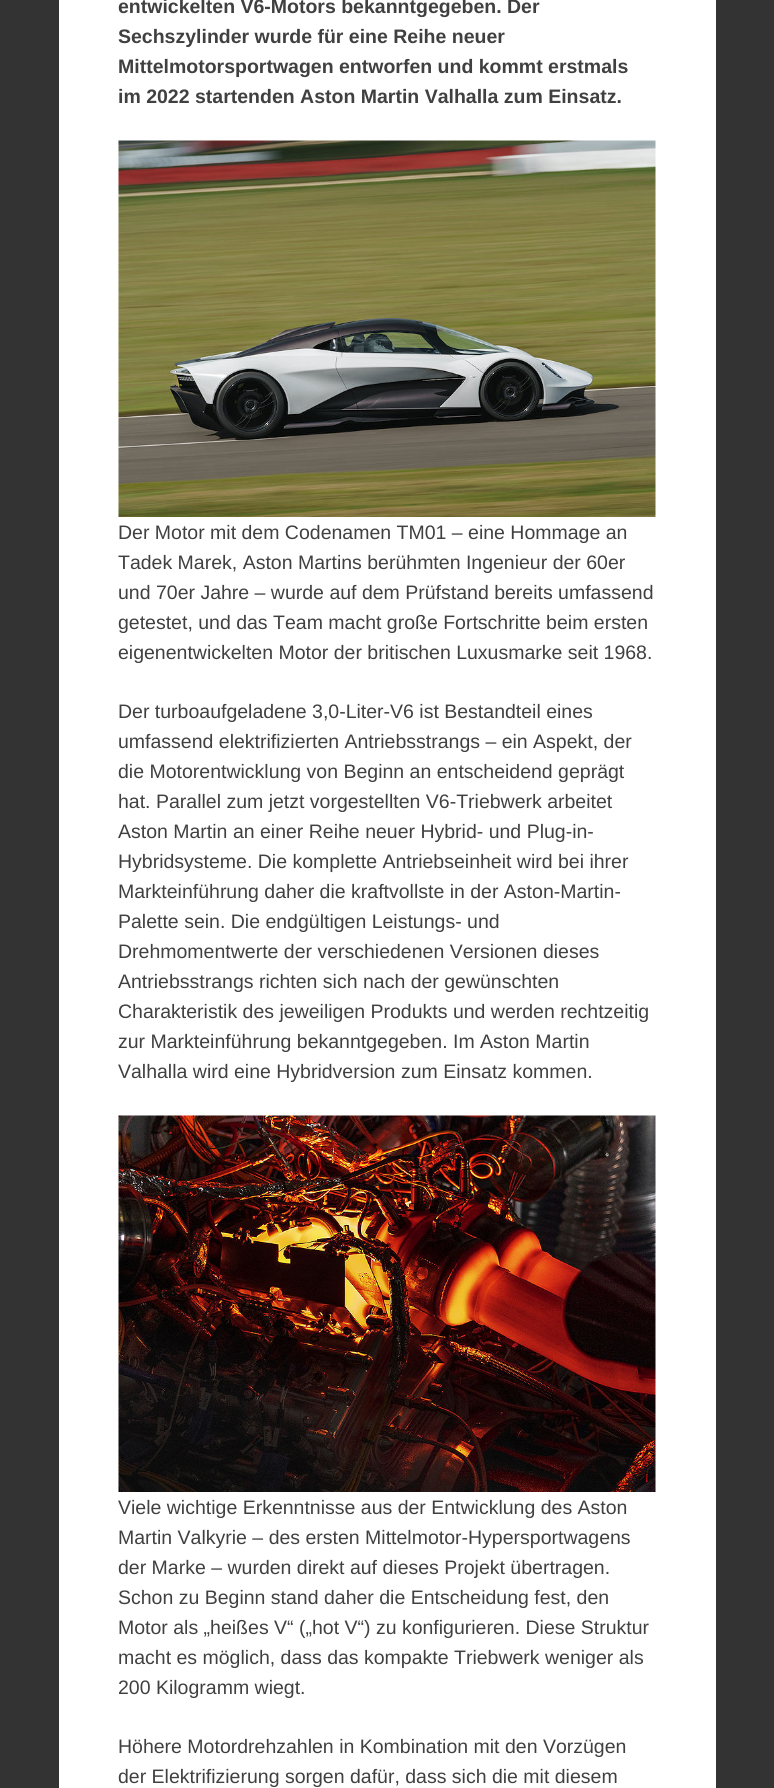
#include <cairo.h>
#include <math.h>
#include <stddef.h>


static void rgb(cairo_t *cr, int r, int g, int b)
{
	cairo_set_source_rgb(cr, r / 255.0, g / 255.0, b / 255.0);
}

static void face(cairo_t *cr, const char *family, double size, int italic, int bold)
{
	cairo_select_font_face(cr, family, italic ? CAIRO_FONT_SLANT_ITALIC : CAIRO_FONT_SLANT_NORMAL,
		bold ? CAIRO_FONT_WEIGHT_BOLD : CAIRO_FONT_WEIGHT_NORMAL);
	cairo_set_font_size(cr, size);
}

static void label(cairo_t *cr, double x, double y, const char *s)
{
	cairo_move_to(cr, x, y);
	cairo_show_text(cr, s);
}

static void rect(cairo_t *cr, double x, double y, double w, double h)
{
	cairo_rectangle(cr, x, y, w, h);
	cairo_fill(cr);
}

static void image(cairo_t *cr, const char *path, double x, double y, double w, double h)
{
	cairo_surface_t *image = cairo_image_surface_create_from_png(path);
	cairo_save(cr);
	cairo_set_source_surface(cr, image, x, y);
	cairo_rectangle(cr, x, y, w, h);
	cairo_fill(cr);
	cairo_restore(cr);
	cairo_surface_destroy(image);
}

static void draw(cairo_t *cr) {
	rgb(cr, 51, 51, 51);
	cairo_paint(cr);
	rgb(cr, 255, 255, 255);
	rect(cr, 59, 0, 657, 1788);
	face(cr, "Liberation Sans", 19.5, 0, 1);
	rgb(cr, 64, 64, 64);
	label(cr, 118, 13, "entwickelten V6-Motors bekanntgegeben. Der");
	label(cr, 118, 43, "Sechszylinder wurde für eine Reihe neuer");
	label(cr, 118, 73, "Mittelmotorsportwagen entworfen und kommt erstmals");
	label(cr, 118, 103, "im 2022 startenden Aston Martin Valhalla zum Einsatz.");
	image(cr, "image0.png", 118, 140, 538, 377);
	face(cr, "Liberation Sans", 19.5, 0, 0);
	label(cr, 118, 539, "Der Motor mit dem Codenamen TM01 – eine Hommage an");
	label(cr, 118, 569, "Tadek Marek, Aston Martins berühmten Ingenieur der 60er");
	label(cr, 118, 599, "und 70er Jahre – wurde auf dem Prüfstand bereits umfassend");
	label(cr, 118, 629, "getestet, und das Team macht große Fortschritte beim ersten");
	label(cr, 118, 659, "eigenentwickelten Motor der britischen Luxusmarke seit 1968.");
	label(cr, 118, 718, "Der turboaufgeladene 3,0-Liter-V6 ist Bestandteil eines");
	label(cr, 118, 748, "umfassend elektrifizierten Antriebsstrangs – ein Aspekt, der");
	label(cr, 118, 778, "die Motorentwicklung von Beginn an entscheidend geprägt");
	label(cr, 118, 808, "hat. Parallel zum jetzt vorgestellten V6-Triebwerk arbeitet");
	label(cr, 118, 838, "Aston Martin an einer Reihe neuer Hybrid- und Plug-in-");
	label(cr, 118, 868, "Hybridsysteme. Die komplette Antriebseinheit wird bei ihrer");
	label(cr, 118, 898, "Markteinführung daher die kraftvollste in der Aston-Martin-");
	label(cr, 118, 928, "Palette sein. Die endgültigen Leistungs- und");
	label(cr, 118, 958, "Drehmomentwerte der verschiedenen Versionen dieses");
	label(cr, 118, 988, "Antriebsstrangs richten sich nach der gewünschten");
	label(cr, 118, 1018, "Charakteristik des jeweiligen Produkts und werden rechtzeitig");
	label(cr, 118, 1048, "zur Markteinführung bekanntgegeben. Im Aston Martin");
	label(cr, 118, 1078, "Valhalla wird eine Hybridversion zum Einsatz kommen.");
	image(cr, "image1.png", 118, 1115, 538, 377);
	label(cr, 118, 1514, "Viele wichtige Erkenntnisse aus der Entwicklung des Aston");
	label(cr, 118, 1544, "Martin Valkyrie – des ersten Mittelmotor-Hypersportwagens");
	label(cr, 118, 1574, "der Marke – wurden direkt auf dieses Projekt übertragen.");
	label(cr, 118, 1604, "Schon zu Beginn stand daher die Entscheidung fest, den");
	label(cr, 118, 1634, "Motor als „heißes V“ („hot V“) zu konfigurieren. Diese Struktur");
	label(cr, 118, 1664, "macht es möglich, dass das kompakte Triebwerk weniger als");
	label(cr, 118, 1694, "200 Kilogramm wiegt.");
	label(cr, 118, 1753, "Höhere Motordrehzahlen in Kombination mit den Vorzügen");
	label(cr, 118, 1783, "der Elektrifizierung sorgen dafür, dass sich die mit diesem");
}

int main(void) {
	cairo_surface_t *surface = cairo_image_surface_create(CAIRO_FORMAT_RGB24, 774, 1788);
	cairo_t *cr = cairo_create(surface);
	cairo_font_options_t *options = cairo_font_options_create();
	cairo_font_options_set_hint_metrics(options, CAIRO_HINT_METRICS_OFF);
	cairo_font_options_set_hint_style(options, CAIRO_HINT_STYLE_NONE);
	cairo_set_font_options(cr, options);
	cairo_set_miter_limit(cr, 4);
	draw(cr);
	cairo_surface_write_to_png(surface, "render.png");
	cairo_font_options_destroy(options);
	cairo_destroy(cr);
	cairo_surface_destroy(surface);
	return 0;
}
